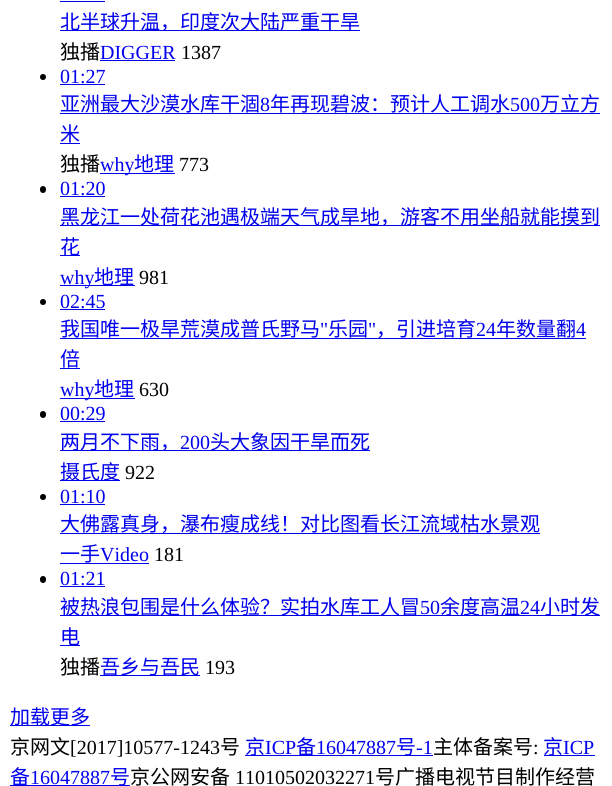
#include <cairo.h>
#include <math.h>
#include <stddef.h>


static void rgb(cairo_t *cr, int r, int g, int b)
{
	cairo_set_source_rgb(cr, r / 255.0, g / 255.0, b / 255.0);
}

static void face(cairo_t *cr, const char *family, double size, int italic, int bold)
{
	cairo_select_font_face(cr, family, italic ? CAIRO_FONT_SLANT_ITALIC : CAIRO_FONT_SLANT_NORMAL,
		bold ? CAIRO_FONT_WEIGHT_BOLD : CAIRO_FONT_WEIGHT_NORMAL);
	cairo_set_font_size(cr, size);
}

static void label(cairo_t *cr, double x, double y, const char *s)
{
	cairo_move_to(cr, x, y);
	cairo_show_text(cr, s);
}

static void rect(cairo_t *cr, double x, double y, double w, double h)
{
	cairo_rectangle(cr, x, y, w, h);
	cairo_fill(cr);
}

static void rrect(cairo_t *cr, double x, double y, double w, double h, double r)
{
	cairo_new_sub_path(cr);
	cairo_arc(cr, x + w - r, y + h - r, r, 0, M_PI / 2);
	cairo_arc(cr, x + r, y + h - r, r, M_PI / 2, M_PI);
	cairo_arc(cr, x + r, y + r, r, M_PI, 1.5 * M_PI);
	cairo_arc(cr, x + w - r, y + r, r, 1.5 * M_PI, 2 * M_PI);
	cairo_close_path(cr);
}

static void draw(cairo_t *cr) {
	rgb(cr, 255, 255, 255);
	cairo_paint(cr);
	rgb(cr, 0, 0, 238);
	rect(cr, 60, 1, 45, 1);
	rect(cr, 60, 30, 300, 1);
	face(cr, "Noto Sans CJK SC", 20, 0, 0);
	label(cr, 60, 29, "北半球升温，印度次大陆严重干旱");
	rgb(cr, 0, 0, 0);
	label(cr, 60, 59, "独播");
	face(cr, "Liberation Serif", 20, 0, 0);
	rgb(cr, 0, 0, 238);
	label(cr, 100, 59, "DIGGER");
	rect(cr, 100, 60, 75, 1);
	rgb(cr, 0, 0, 0);
	label(cr, 181, 59, "1387");
	cairo_new_path(cr);
	cairo_arc(cr, 43, 77, 3, 0, 2 * M_PI);
	cairo_fill(cr);
	rgb(cr, 0, 0, 238);
	label(cr, 60, 83, "01:27");
	rect(cr, 60, 84, 45, 1);
	face(cr, "Noto Sans CJK SC", 20, 0, 0);
	label(cr, 60, 111, "亚洲最大沙漠水库干涸");
	face(cr, "Liberation Serif", 20, 0, 0);
	label(cr, 260, 111, "8");
	rect(cr, 60, 113, 540, 1);
	face(cr, "Noto Sans CJK SC", 20, 0, 0);
	label(cr, 270, 111, "年再现碧波：预计人工调水");
	face(cr, "Liberation Serif", 20, 0, 0);
	label(cr, 510, 111, "500");
	face(cr, "Noto Sans CJK SC", 20, 0, 0);
	label(cr, 540, 111, "万立方");
	label(cr, 60, 141, "米");
	rect(cr, 60, 143, 20, 1);
	rgb(cr, 0, 0, 0);
	label(cr, 60, 171, "独播");
	rgb(cr, 0, 0, 238);
	rect(cr, 100, 173, 75, 1);
	face(cr, "Liberation Serif", 20, 0, 0);
	label(cr, 100, 171, "why");
	face(cr, "Noto Sans CJK SC", 20, 0, 0);
	label(cr, 134, 171, "地理");
	face(cr, "Liberation Serif", 20, 0, 0);
	rgb(cr, 0, 0, 0);
	label(cr, 179, 171, "773");
	rrect(cr, 40, 186, 6, 7, 3);
	cairo_fill(cr);
	rgb(cr, 0, 0, 238);
	label(cr, 60, 195, "01:20");
	rect(cr, 60, 196, 45, 1);
	rect(cr, 60, 225, 540, 1);
	face(cr, "Noto Sans CJK SC", 20, 0, 0);
	label(cr, 60, 224, "黑龙江一处荷花池遇极端天气成旱地，游客不用坐船就能摸到");
	rect(cr, 60, 255, 20, 1);
	label(cr, 60, 254, "花");
	rect(cr, 60, 285, 75, 1);
	face(cr, "Liberation Serif", 20, 0, 0);
	label(cr, 60, 284, "why");
	face(cr, "Noto Sans CJK SC", 20, 0, 0);
	label(cr, 94, 284, "地理");
	face(cr, "Liberation Serif", 20, 0, 0);
	rgb(cr, 0, 0, 0);
	label(cr, 139, 284, "981");
	cairo_new_path(cr);
	cairo_arc(cr, 43, 302, 3, 0, 2 * M_PI);
	cairo_fill(cr);
	rgb(cr, 0, 0, 238);
	label(cr, 60, 308, "02:45");
	rect(cr, 60, 309, 45, 1);
	face(cr, "Noto Sans CJK SC", 20, 0, 0);
	label(cr, 60, 336, "我国唯一极旱荒漠成普氏野马");
	face(cr, "Liberation Serif", 20, 0, 0);
	label(cr, 320, 336, "\"");
	face(cr, "Noto Sans CJK SC", 20, 0, 0);
	label(cr, 328, 336, "乐园");
	face(cr, "Liberation Serif", 20, 0, 0);
	label(cr, 368, 336, "\"");
	rect(cr, 60, 338, 526, 1);
	face(cr, "Noto Sans CJK SC", 20, 0, 0);
	label(cr, 376, 336, "，引进培育");
	face(cr, "Liberation Serif", 20, 0, 0);
	label(cr, 476, 336, "24");
	face(cr, "Noto Sans CJK SC", 20, 0, 0);
	label(cr, 496, 336, "年数量翻");
	face(cr, "Liberation Serif", 20, 0, 0);
	label(cr, 576, 336, "4");
	face(cr, "Noto Sans CJK SC", 20, 0, 0);
	label(cr, 60, 366, "倍");
	rect(cr, 60, 368, 20, 1);
	rect(cr, 60, 398, 75, 1);
	face(cr, "Liberation Serif", 20, 0, 0);
	label(cr, 60, 396, "why");
	face(cr, "Noto Sans CJK SC", 20, 0, 0);
	label(cr, 94, 396, "地理");
	face(cr, "Liberation Serif", 20, 0, 0);
	rgb(cr, 0, 0, 0);
	label(cr, 139, 396, "630");
	rrect(cr, 40, 411, 6, 7, 3);
	cairo_fill(cr);
	rgb(cr, 0, 0, 238);
	label(cr, 60, 420, "00:29");
	rect(cr, 60, 421, 45, 1);
	rect(cr, 60, 450, 310, 1);
	face(cr, "Noto Sans CJK SC", 20, 0, 0);
	label(cr, 60, 449, "两月不下雨，");
	face(cr, "Liberation Serif", 20, 0, 0);
	label(cr, 180, 449, "200");
	face(cr, "Noto Sans CJK SC", 20, 0, 0);
	label(cr, 210, 449, "头大象因干旱而死");
	rect(cr, 60, 480, 60, 1);
	label(cr, 60, 479, "摄氏度");
	face(cr, "Liberation Serif", 20, 0, 0);
	rgb(cr, 0, 0, 0);
	label(cr, 125, 479, "922");
	cairo_new_path(cr);
	cairo_arc(cr, 43, 497, 3, 0, 2 * M_PI);
	cairo_fill(cr);
	rgb(cr, 0, 0, 238);
	label(cr, 60, 503, "01:10");
	rect(cr, 60, 504, 45, 1);
	rect(cr, 60, 533, 480, 1);
	face(cr, "Noto Sans CJK SC", 20, 0, 0);
	label(cr, 60, 531, "大佛露真身，瀑布瘦成线！对比图看长江流域枯水景观");
	label(cr, 60, 561, "一手");
	face(cr, "Liberation Serif", 20, 0, 0);
	label(cr, 100, 561, "Video");
	rect(cr, 60, 563, 89, 1);
	rgb(cr, 0, 0, 0);
	label(cr, 154, 561, "181");
	rrect(cr, 40, 576, 6, 7, 3);
	cairo_fill(cr);
	rgb(cr, 0, 0, 238);
	label(cr, 60, 585, "01:21");
	rect(cr, 60, 586, 45, 1);
	rect(cr, 60, 615, 540, 1);
	face(cr, "Noto Sans CJK SC", 20, 0, 0);
	label(cr, 60, 614, "被热浪包围是什么体验？实拍水库工人冒");
	face(cr, "Liberation Serif", 20, 0, 0);
	label(cr, 420, 614, "50");
	face(cr, "Noto Sans CJK SC", 20, 0, 0);
	label(cr, 440, 614, "余度高温");
	face(cr, "Liberation Serif", 20, 0, 0);
	label(cr, 520, 614, "24");
	face(cr, "Noto Sans CJK SC", 20, 0, 0);
	label(cr, 540, 614, "小时发");
	rect(cr, 60, 645, 20, 1);
	label(cr, 60, 644, "电");
	rgb(cr, 0, 0, 0);
	label(cr, 60, 674, "独播");
	rgb(cr, 0, 0, 238);
	rect(cr, 100, 675, 100, 1);
	label(cr, 100, 674, "吾乡与吾民");
	face(cr, "Liberation Serif", 20, 0, 0);
	rgb(cr, 0, 0, 0);
	label(cr, 205, 674, "193");
	rgb(cr, 0, 0, 238);
	rect(cr, 10, 725, 80, 1);
	face(cr, "Noto Sans CJK SC", 20, 0, 0);
	label(cr, 10, 724, "加载更多");
	rgb(cr, 0, 0, 0);
	label(cr, 10, 754, "京网文");
	face(cr, "Liberation Serif", 20, 0, 0);
	label(cr, 70, 754, "[2017]10577-1243");
	face(cr, "Noto Sans CJK SC", 20, 0, 0);
	label(cr, 220, 754, "号");
	rgb(cr, 0, 0, 238);
	rect(cr, 245, 755, 188, 1);
	label(cr, 245, 754, "京");
	face(cr, "Liberation Serif", 20, 0, 0);
	label(cr, 265, 754, "ICP");
	face(cr, "Noto Sans CJK SC", 20, 0, 0);
	label(cr, 296, 754, "备");
	face(cr, "Liberation Serif", 20, 0, 0);
	label(cr, 316, 754, "16047887");
	face(cr, "Noto Sans CJK SC", 20, 0, 0);
	label(cr, 396, 754, "号");
	face(cr, "Liberation Serif", 20, 0, 0);
	label(cr, 416, 754, "-1");
	face(cr, "Noto Sans CJK SC", 20, 0, 0);
	rgb(cr, 0, 0, 0);
	label(cr, 433, 754, "主体备案号");
	face(cr, "Liberation Serif", 20, 0, 0);
	label(cr, 533, 754, ":");
	rgb(cr, 0, 0, 238);
	rect(cr, 544, 755, 51, 1);
	face(cr, "Noto Sans CJK SC", 20, 0, 0);
	label(cr, 543, 754, "京");
	face(cr, "Liberation Serif", 20, 0, 0);
	label(cr, 563, 754, "ICP");
	rect(cr, 10, 785, 120, 1);
	face(cr, "Noto Sans CJK SC", 20, 0, 0);
	label(cr, 10, 784, "备");
	face(cr, "Liberation Serif", 20, 0, 0);
	label(cr, 30, 784, "16047887");
	face(cr, "Noto Sans CJK SC", 20, 0, 0);
	label(cr, 110, 784, "号");
	rgb(cr, 0, 0, 0);
	label(cr, 130, 784, "京公网安备");
	face(cr, "Liberation Serif", 20, 0, 0);
	label(cr, 235, 784, "11010502032271");
	face(cr, "Noto Sans CJK SC", 20, 0, 0);
	label(cr, 375, 784, "号广播电视节目制作经营");
}

int main(void) {
	cairo_surface_t *surface = cairo_image_surface_create(CAIRO_FORMAT_RGB24, 612, 786);
	cairo_t *cr = cairo_create(surface);
	cairo_font_options_t *options = cairo_font_options_create();
	cairo_font_options_set_hint_metrics(options, CAIRO_HINT_METRICS_OFF);
	cairo_font_options_set_hint_style(options, CAIRO_HINT_STYLE_NONE);
	cairo_set_font_options(cr, options);
	cairo_set_miter_limit(cr, 4);
	draw(cr);
	cairo_surface_write_to_png(surface, "render.png");
	cairo_font_options_destroy(options);
	cairo_destroy(cr);
	cairo_surface_destroy(surface);
	return 0;
}
